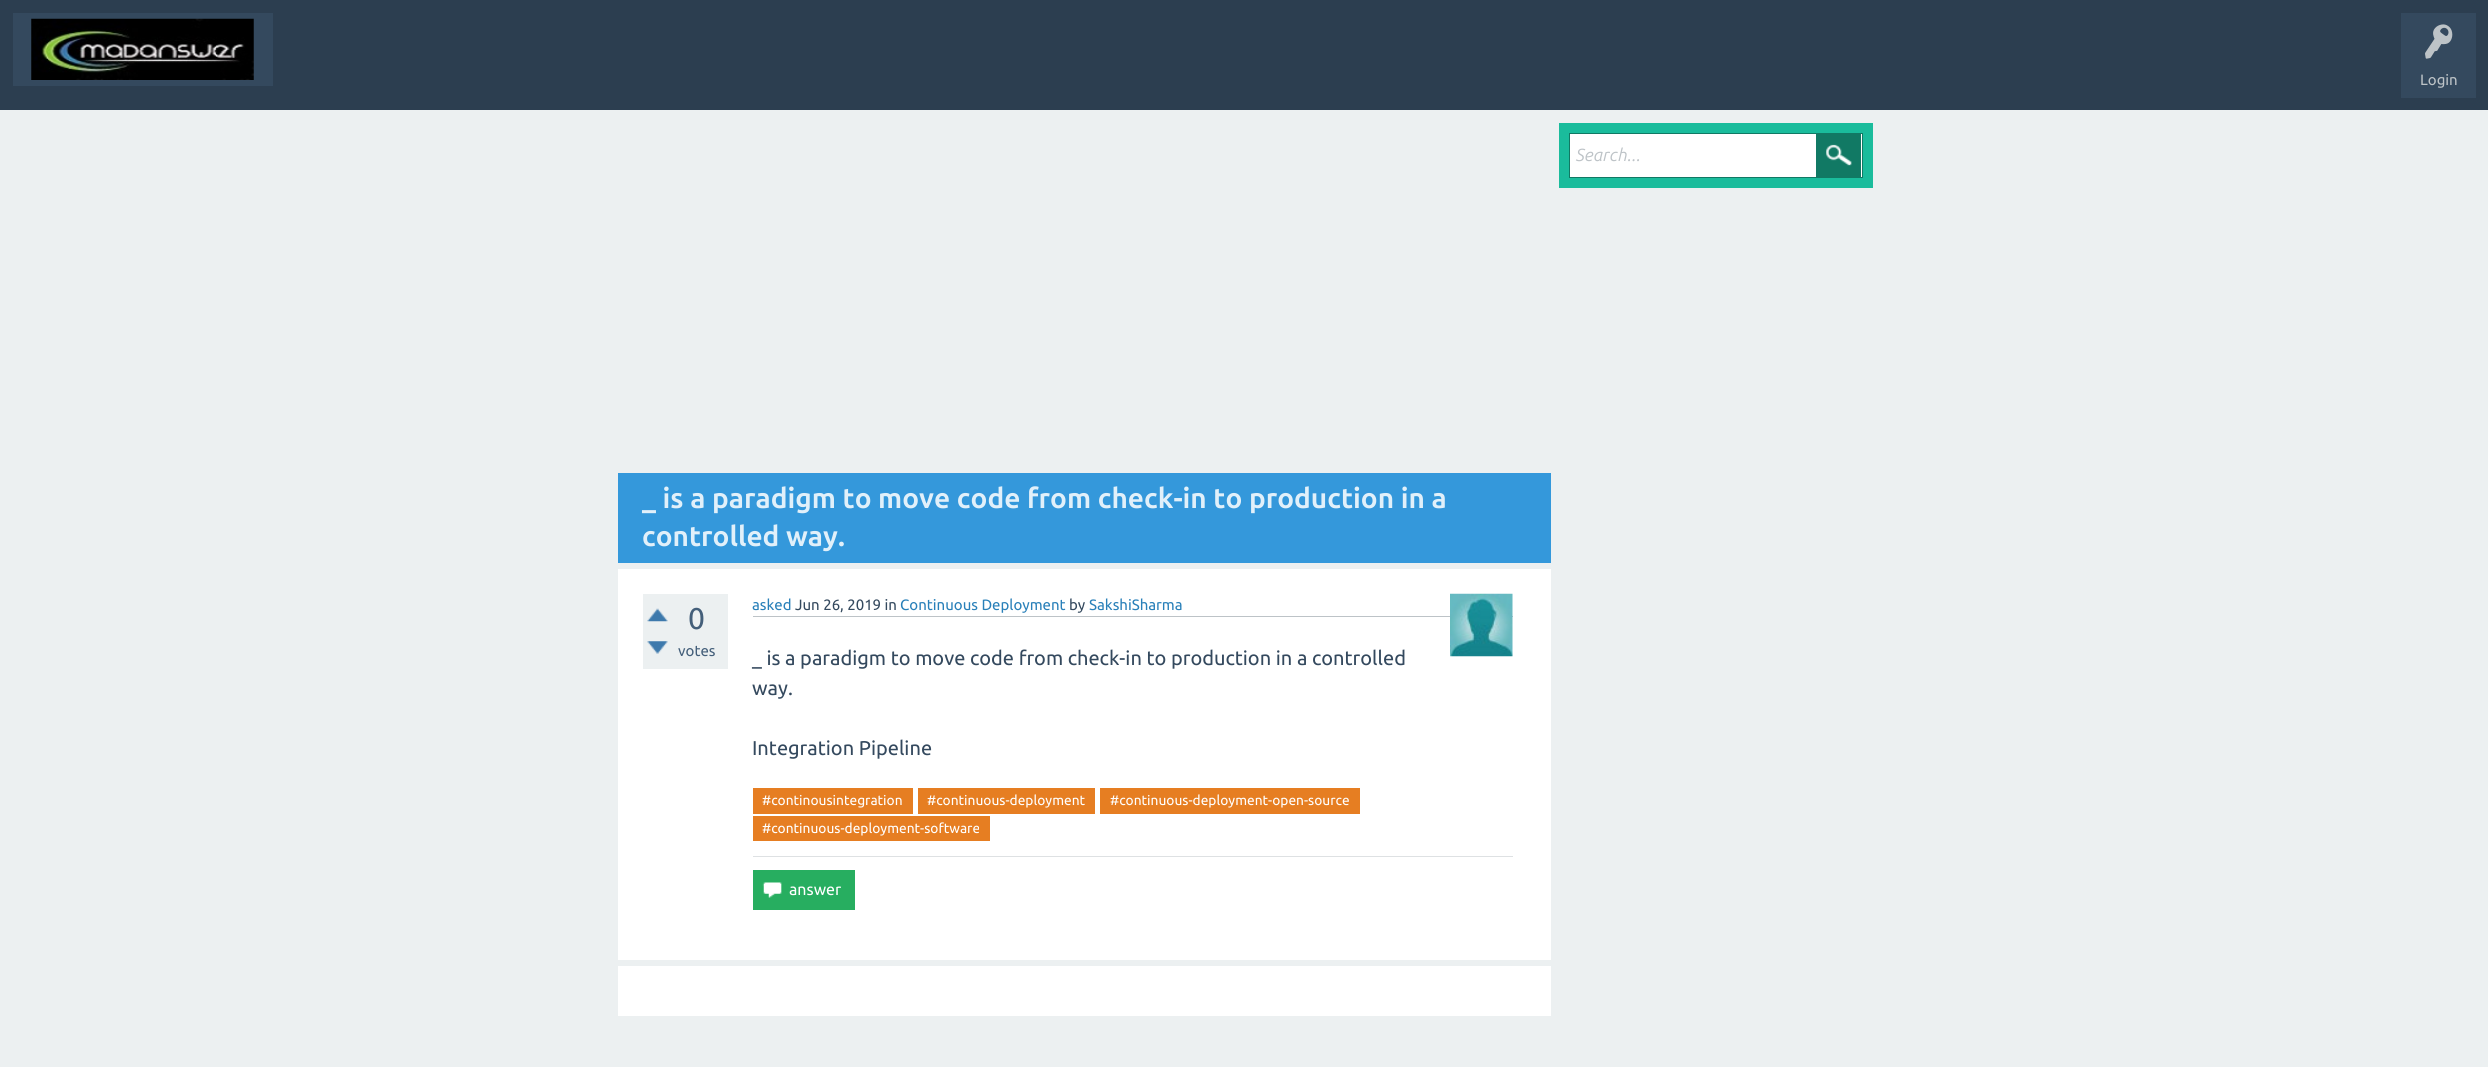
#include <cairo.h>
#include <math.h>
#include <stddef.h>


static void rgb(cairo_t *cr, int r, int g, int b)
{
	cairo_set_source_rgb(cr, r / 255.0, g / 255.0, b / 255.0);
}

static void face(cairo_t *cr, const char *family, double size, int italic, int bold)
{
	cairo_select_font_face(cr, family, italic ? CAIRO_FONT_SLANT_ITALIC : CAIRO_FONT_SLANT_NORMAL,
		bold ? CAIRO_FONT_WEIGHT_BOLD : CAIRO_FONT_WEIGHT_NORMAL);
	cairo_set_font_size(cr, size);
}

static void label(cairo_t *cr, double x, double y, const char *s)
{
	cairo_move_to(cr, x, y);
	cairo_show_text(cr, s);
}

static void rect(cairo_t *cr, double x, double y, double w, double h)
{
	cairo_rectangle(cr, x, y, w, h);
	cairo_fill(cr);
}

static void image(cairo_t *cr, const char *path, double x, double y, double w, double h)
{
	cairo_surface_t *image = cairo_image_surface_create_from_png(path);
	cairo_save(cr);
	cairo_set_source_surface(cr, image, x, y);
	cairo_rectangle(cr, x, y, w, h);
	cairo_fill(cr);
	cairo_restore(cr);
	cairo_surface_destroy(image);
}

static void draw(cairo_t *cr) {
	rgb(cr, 236, 240, 241);
	cairo_paint(cr);
	rgb(cr, 44, 62, 80);
	rect(cr, 0, 0, 2488, 110);
	rgb(cr, 52, 73, 94);
	rect(cr, 13, 13, 260, 73);
	image(cr, "image0.png", 31, 18, 223, 62);
	rect(cr, 2401, 13, 75, 85);
	image(cr, "image1.png", 2425, 24, 28, 35);
	face(cr, "Ubuntu", 15, 0, 0);
	rgb(cr, 189, 195, 199);
	label(cr, 2420, 85, "Login");
	rgb(cr, 26, 188, 156);
	rect(cr, 1559, 123, 314, 65);
	rgb(cr, 255, 255, 255);
	cairo_rectangle(cr, 1569.5, 133.5, 293, 44);
	cairo_fill_preserve(cr);
	rgb(cr, 17, 121, 100);
	cairo_set_line_width(cr, 1);
	cairo_stroke(cr);
	face(cr, "Ubuntu", 17.5, 1, 0);
	rgb(cr, 189, 195, 199);
	label(cr, 1576, 161, "Search...");
	rgb(cr, 17, 121, 100);
	rect(cr, 1816, 134, 45, 43);
	image(cr, "image2.png", 1826, 144, 26, 22);
	rgb(cr, 52, 152, 219);
	rect(cr, 618, 473, 933, 90);
	face(cr, "Ubuntu", 28, 0, 1);
	rgb(cr, 225, 240, 250);
	label(cr, 642, 508, "_ is a paradigm to move code from check-in to production in a");
	label(cr, 642, 546, "controlled way.");
	rgb(cr, 255, 255, 255);
	rect(cr, 618, 569, 933, 391);
	rgb(cr, 236, 240, 241);
	rect(cr, 643, 594, 85, 75);
	image(cr, "image3.png", 647, 608, 21, 14);
	image(cr, "image4.png", 647, 641, 21, 13);
	face(cr, "Ubuntu", 30, 0, 0);
	rgb(cr, 68, 95, 122);
	label(cr, 688, 629, "0");
	face(cr, "Ubuntu", 15, 0, 0);
	label(cr, 678, 656, "votes");
	rgb(cr, 189, 195, 199);
	rect(cr, 753, 616, 760, 1);
	rgb(cr, 41, 128, 185);
	label(cr, 752, 610, "asked");
	rgb(cr, 52, 73, 94);
	label(cr, 795, 610, "Jun 26, 2019 in");
	rgb(cr, 41, 128, 185);
	label(cr, 900, 610, "Continuous Deployment");
	rgb(cr, 52, 73, 94);
	label(cr, 1069, 610, "by");
	rgb(cr, 41, 128, 185);
	label(cr, 1089, 610, "SakshiSharma");
	image(cr, "image5.png", 1450, 593, 63, 64);
	face(cr, "Ubuntu", 20, 0, 0);
	rgb(cr, 52, 73, 94);
	label(cr, 752, 665, "_ is a paradigm to move code from check-in to production in a controlled");
	label(cr, 752, 695, "way.");
	label(cr, 752, 755, "Integration Pipeline");
	rgb(cr, 230, 126, 34);
	rect(cr, 753, 788, 160, 26);
	face(cr, "Ubuntu", 13.75, 0, 0);
	rgb(cr, 255, 255, 255);
	label(cr, 762, 805, "#continousintegration");
	rgb(cr, 230, 126, 34);
	rect(cr, 918, 788, 177, 26);
	rgb(cr, 255, 255, 255);
	label(cr, 927, 805, "#continuous-deployment");
	rgb(cr, 230, 126, 34);
	rect(cr, 1100, 788, 260, 26);
	rgb(cr, 255, 255, 255);
	label(cr, 1110, 805, "#continuous-deployment-open-source");
	rgb(cr, 230, 126, 34);
	rect(cr, 753, 816, 237, 25);
	rgb(cr, 255, 255, 255);
	label(cr, 762, 833, "#continuous-deployment-software");
	rgb(cr, 222, 225, 227);
	rect(cr, 753, 856, 760, 1);
	rgb(cr, 39, 174, 96);
	rect(cr, 753, 870, 102, 40);
	image(cr, "image6.png", 762, 882, 20, 16);
	face(cr, "Ubuntu", 16, 0, 0);
	rgb(cr, 255, 255, 255);
	label(cr, 789, 895, "answer");
	rect(cr, 618, 966, 933, 50);
}

int main(void) {
	cairo_surface_t *surface = cairo_image_surface_create(CAIRO_FORMAT_RGB24, 2488, 1067);
	cairo_t *cr = cairo_create(surface);
	cairo_font_options_t *options = cairo_font_options_create();
	cairo_font_options_set_hint_metrics(options, CAIRO_HINT_METRICS_OFF);
	cairo_font_options_set_hint_style(options, CAIRO_HINT_STYLE_NONE);
	cairo_set_font_options(cr, options);
	cairo_set_miter_limit(cr, 4);
	draw(cr);
	cairo_surface_write_to_png(surface, "render.png");
	cairo_font_options_destroy(options);
	cairo_destroy(cr);
	cairo_surface_destroy(surface);
	return 0;
}
